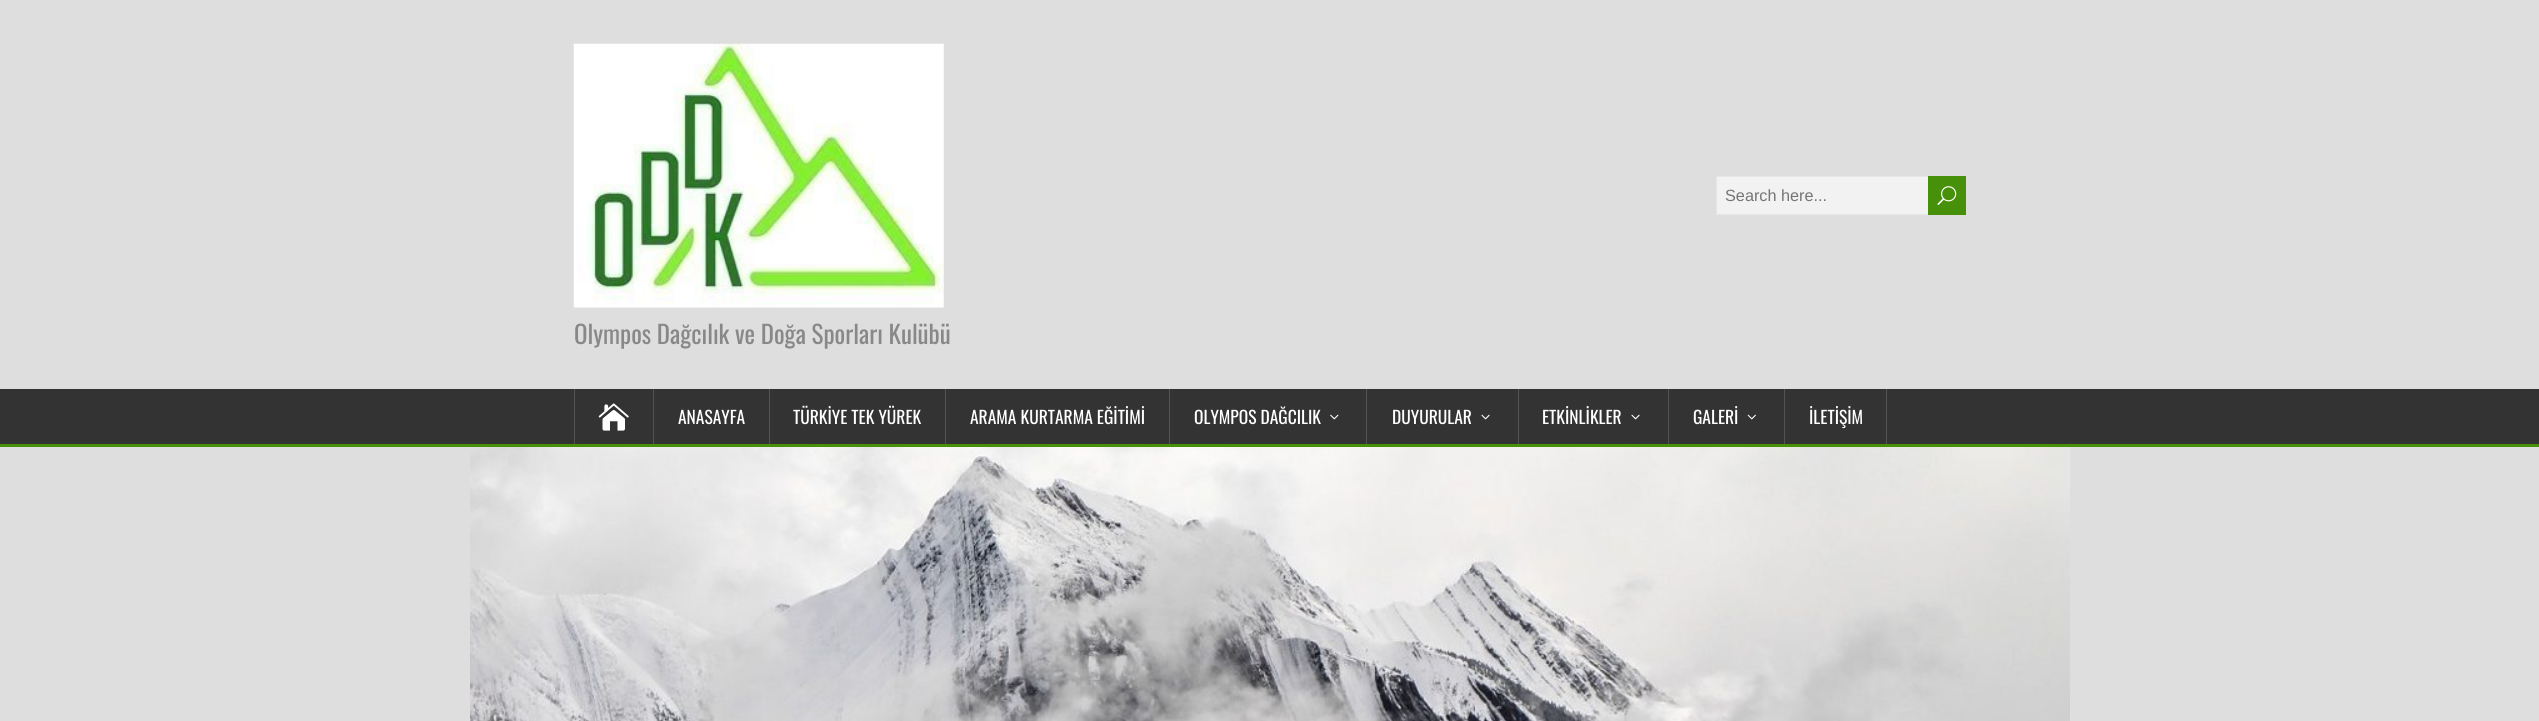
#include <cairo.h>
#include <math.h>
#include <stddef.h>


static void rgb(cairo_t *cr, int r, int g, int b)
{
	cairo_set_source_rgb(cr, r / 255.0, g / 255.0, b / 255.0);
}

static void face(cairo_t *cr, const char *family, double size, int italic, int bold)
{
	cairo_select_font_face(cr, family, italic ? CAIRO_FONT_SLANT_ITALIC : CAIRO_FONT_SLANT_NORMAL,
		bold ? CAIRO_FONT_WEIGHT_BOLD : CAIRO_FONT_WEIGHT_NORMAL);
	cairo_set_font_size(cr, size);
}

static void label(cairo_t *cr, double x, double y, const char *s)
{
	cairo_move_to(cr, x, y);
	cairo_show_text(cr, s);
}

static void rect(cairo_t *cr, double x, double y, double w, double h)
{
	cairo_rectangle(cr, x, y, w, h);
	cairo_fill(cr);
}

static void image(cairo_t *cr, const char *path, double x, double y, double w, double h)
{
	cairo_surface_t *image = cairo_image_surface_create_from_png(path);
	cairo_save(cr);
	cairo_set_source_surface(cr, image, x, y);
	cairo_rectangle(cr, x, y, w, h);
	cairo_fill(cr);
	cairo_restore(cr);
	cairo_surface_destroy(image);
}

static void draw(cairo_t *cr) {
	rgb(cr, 222, 222, 222);
	cairo_paint(cr);
	image(cr, "image0.png", 573, 43, 371, 265);
	rgb(cr, 242, 242, 242);
	rect(cr, 1717, 177, 211, 37);
	cairo_rectangle(cr, 1716.5, 176.5, 249, 38);
	rgb(cr, 230, 230, 230);
	cairo_set_line_width(cr, 1);
	cairo_stroke(cr);
	face(cr, "Liberation Sans", 16.25, 0, 0);
	rgb(cr, 117, 117, 117);
	label(cr, 1725, 201, "Search here...");
	rgb(cr, 71, 145, 10);
	rect(cr, 1928, 176, 38, 39);
	image(cr, "image1.png", 1937, 186, 20, 19);
	face(cr, "Oswald", 25, 0, 0);
	rgb(cr, 136, 136, 136);
	label(cr, 574, 344, "Olympos Dağcılık ve Doğa Sporları Kulübü");
	rgb(cr, 51, 51, 51);
	rect(cr, 0, 389, 2539, 55);
	rgb(cr, 71, 145, 10);
	rect(cr, 0, 444, 2539, 3);
	rgb(cr, 83, 83, 83);
	rect(cr, 653, 389, 1, 55);
	rect(cr, 574, 389, 1, 55);
	image(cr, "image2.png", 598, 403, 31, 28);
	rect(cr, 769, 389, 1, 55);
	face(cr, "Oswald", 17.5, 0, 0);
	rgb(cr, 255, 255, 255);
	label(cr, 678, 424, "ANASAYFA");
	rgb(cr, 83, 83, 83);
	rect(cr, 945, 389, 1, 55);
	rgb(cr, 255, 255, 255);
	label(cr, 793, 424, "TÜRKİYE TEK YÜREK");
	rgb(cr, 83, 83, 83);
	rect(cr, 1169, 389, 1, 55);
	rgb(cr, 255, 255, 255);
	label(cr, 970, 424, "ARAMA KURTARMA EĞİTİMİ");
	rgb(cr, 83, 83, 83);
	rect(cr, 1366, 389, 1, 55);
	rgb(cr, 255, 255, 255);
	label(cr, 1194, 424, "OLYMPOS DAĞCILIK");
	image(cr, "image3.png", 1330, 414, 9, 6);
	rgb(cr, 83, 83, 83);
	rect(cr, 1518, 389, 1, 55);
	rgb(cr, 255, 255, 255);
	label(cr, 1392, 424, "DUYURULAR");
	image(cr, "image4.png", 1481, 414, 9, 6);
	rgb(cr, 83, 83, 83);
	rect(cr, 1668, 389, 1, 55);
	rgb(cr, 255, 255, 255);
	label(cr, 1542, 424, "ETKİNLİKLER");
	image(cr, "image4.png", 1631, 414, 9, 6);
	rgb(cr, 83, 83, 83);
	rect(cr, 1784, 389, 1, 55);
	rgb(cr, 255, 255, 255);
	label(cr, 1693, 424, "GALERİ");
	image(cr, "image5.png", 1747, 414, 9, 6);
	rgb(cr, 83, 83, 83);
	rect(cr, 1886, 389, 1, 55);
	rgb(cr, 255, 255, 255);
	label(cr, 1809, 424, "İLETİŞİM");
	image(cr, "image6.png", 470, 447, 1600, 274);
}

int main(void) {
	cairo_surface_t *surface = cairo_image_surface_create(CAIRO_FORMAT_RGB24, 2539, 721);
	cairo_t *cr = cairo_create(surface);
	cairo_font_options_t *options = cairo_font_options_create();
	cairo_font_options_set_hint_metrics(options, CAIRO_HINT_METRICS_OFF);
	cairo_font_options_set_hint_style(options, CAIRO_HINT_STYLE_NONE);
	cairo_set_font_options(cr, options);
	cairo_set_miter_limit(cr, 4);
	draw(cr);
	cairo_surface_write_to_png(surface, "render.png");
	cairo_font_options_destroy(options);
	cairo_destroy(cr);
	cairo_surface_destroy(surface);
	return 0;
}
